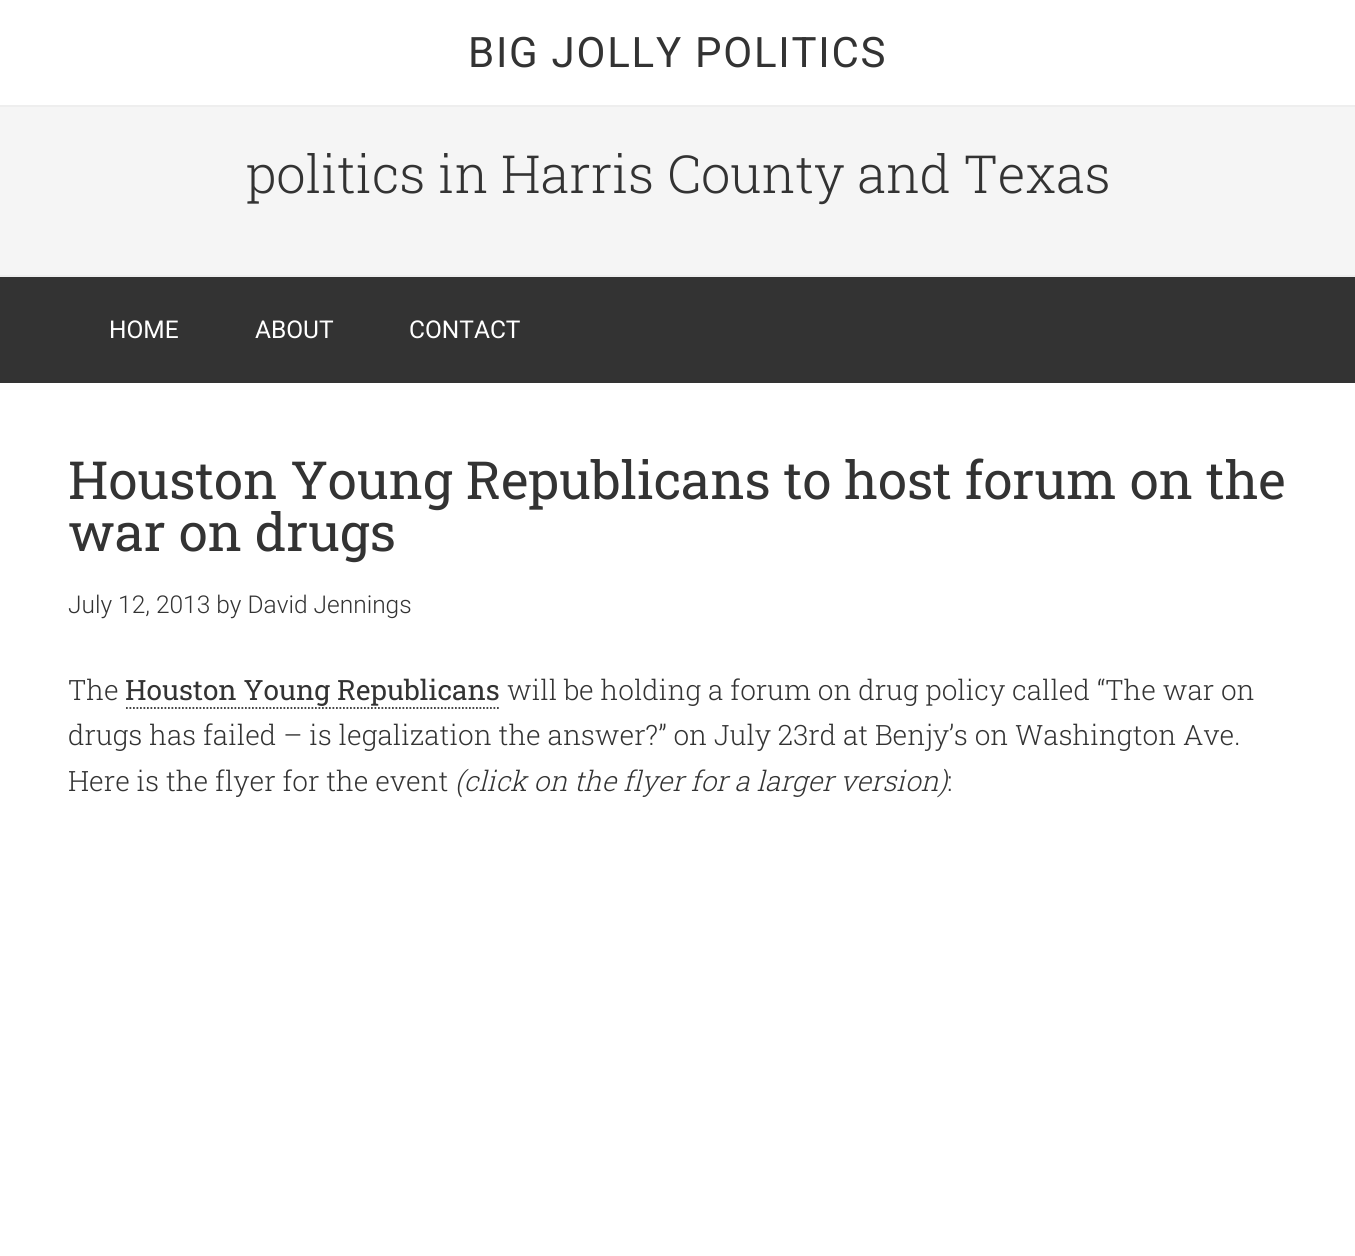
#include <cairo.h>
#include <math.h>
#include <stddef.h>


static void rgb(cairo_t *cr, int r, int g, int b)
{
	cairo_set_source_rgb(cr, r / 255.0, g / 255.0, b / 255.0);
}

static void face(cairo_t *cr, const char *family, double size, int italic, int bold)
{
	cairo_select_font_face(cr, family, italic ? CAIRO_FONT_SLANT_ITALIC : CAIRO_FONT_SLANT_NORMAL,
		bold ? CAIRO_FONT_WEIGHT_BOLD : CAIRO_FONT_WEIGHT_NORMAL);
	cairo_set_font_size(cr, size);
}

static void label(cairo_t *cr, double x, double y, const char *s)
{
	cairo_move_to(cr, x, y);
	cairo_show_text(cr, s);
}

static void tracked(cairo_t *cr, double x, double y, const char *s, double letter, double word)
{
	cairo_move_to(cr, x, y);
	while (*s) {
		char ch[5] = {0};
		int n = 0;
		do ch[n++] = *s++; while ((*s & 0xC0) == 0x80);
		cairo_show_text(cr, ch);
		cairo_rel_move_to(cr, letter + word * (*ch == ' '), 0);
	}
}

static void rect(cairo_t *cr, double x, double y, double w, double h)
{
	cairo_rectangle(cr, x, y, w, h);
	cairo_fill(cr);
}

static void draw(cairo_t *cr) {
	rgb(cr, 255, 255, 255);
	cairo_paint(cr);
	rgb(cr, 238, 238, 238);
	rect(cr, 0, 105, 1355, 2);
	face(cr, "Roboto", 42, 0, 0);
	rgb(cr, 51, 51, 51);
	tracked(cr, 468, 67, "BIG JOLLY POLITICS", 1.75, 0);
	rgb(cr, 245, 245, 245);
	rect(cr, 0, 107, 1355, 168);
	rgb(cr, 238, 238, 238);
	rect(cr, 0, 275, 1355, 2);
	face(cr, "Roboto Slab Light", 52.5, 0, 0);
	rgb(cr, 51, 51, 51);
	label(cr, 246, 193, "politics in Harris County and Texas");
	rect(cr, 0, 277, 1355, 106);
	face(cr, "Roboto", 24.5, 0, 0);
	rgb(cr, 255, 255, 255);
	label(cr, 109, 338, "HOME");
	label(cr, 255, 338, "ABOUT");
	label(cr, 409, 338, "CONTACT");
	face(cr, "Roboto Slab", 52.5, 0, 0);
	rgb(cr, 51, 51, 51);
	label(cr, 68, 499, "Houston Young Republicans to host forum on the");
	label(cr, 68, 551, "war on drugs");
	face(cr, "Roboto Light", 24.5, 0, 0);
	label(cr, 68, 613, "July 12, 2013 by David Jennings");
	face(cr, "Roboto Slab Light", 28, 0, 0);
	label(cr, 68, 700, "The");
	face(cr, "Roboto Slab", 28, 0, 0);
	label(cr, 125, 700, "Houston Young Republicans");
	cairo_new_path(cr);
	cairo_move_to(cr, 126, 708);
	cairo_line_to(cr, 500.5, 708);
	cairo_set_line_width(cr, 1.8);
	cairo_set_dash(cr, (double[]){1.75, 1.75}, 2, 0);
	cairo_stroke(cr);
	face(cr, "Roboto Slab Light", 28, 0, 0);
	label(cr, 507, 700, "will be holding a forum on drug policy called “The war on");
	label(cr, 68, 745, "drugs has failed – is legalization the answer?” on July 23rd at Benjy’s on Washington Ave.");
	label(cr, 68, 791, "Here is the flyer for the event");
	face(cr, "Roboto Slab Light", 28, 1, 0);
	label(cr, 455, 791, "(click on the flyer for a larger version)");
	face(cr, "Roboto Slab Light", 28, 0, 0);
	label(cr, 947, 791, ":");
}

int main(void) {
	cairo_surface_t *surface = cairo_image_surface_create(CAIRO_FORMAT_RGB24, 1355, 1256);
	cairo_t *cr = cairo_create(surface);
	cairo_font_options_t *options = cairo_font_options_create();
	cairo_font_options_set_hint_metrics(options, CAIRO_HINT_METRICS_OFF);
	cairo_font_options_set_hint_style(options, CAIRO_HINT_STYLE_NONE);
	cairo_set_font_options(cr, options);
	cairo_set_miter_limit(cr, 4);
	draw(cr);
	cairo_surface_write_to_png(surface, "render.png");
	cairo_font_options_destroy(options);
	cairo_destroy(cr);
	cairo_surface_destroy(surface);
	return 0;
}
